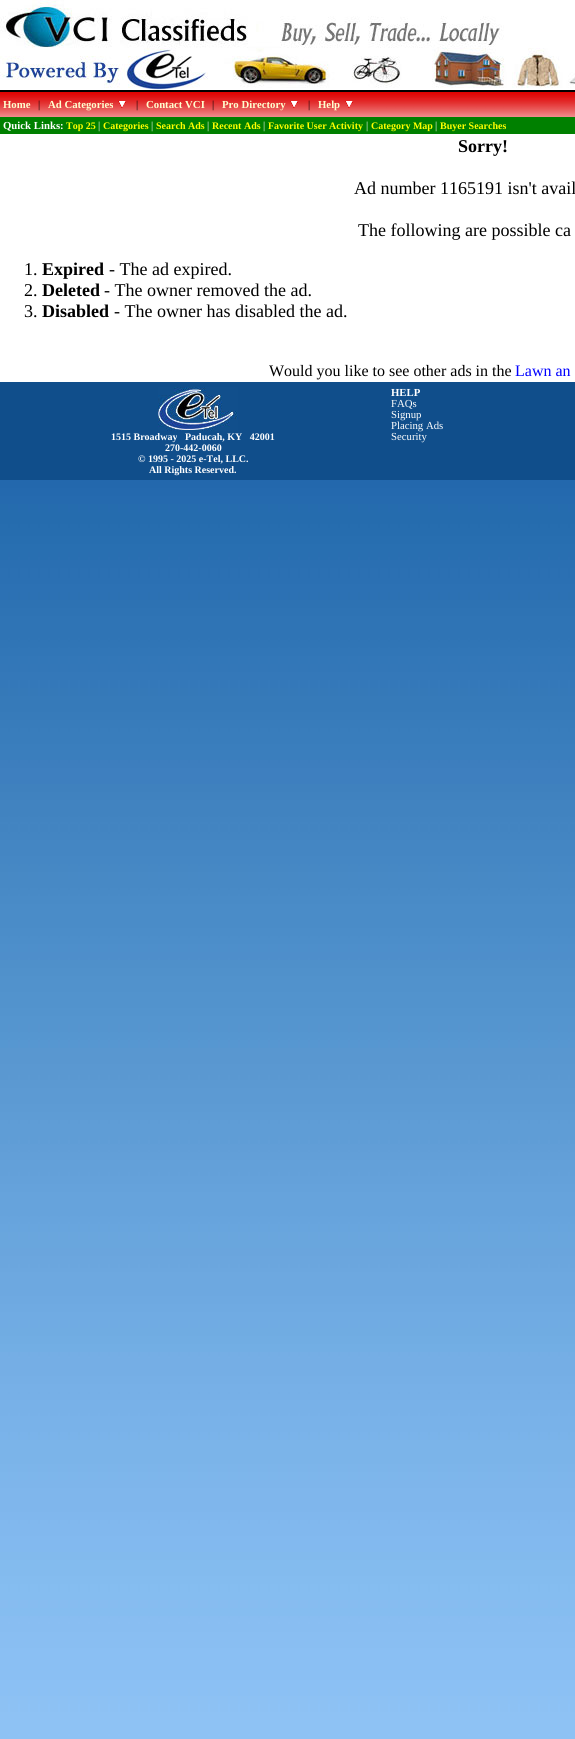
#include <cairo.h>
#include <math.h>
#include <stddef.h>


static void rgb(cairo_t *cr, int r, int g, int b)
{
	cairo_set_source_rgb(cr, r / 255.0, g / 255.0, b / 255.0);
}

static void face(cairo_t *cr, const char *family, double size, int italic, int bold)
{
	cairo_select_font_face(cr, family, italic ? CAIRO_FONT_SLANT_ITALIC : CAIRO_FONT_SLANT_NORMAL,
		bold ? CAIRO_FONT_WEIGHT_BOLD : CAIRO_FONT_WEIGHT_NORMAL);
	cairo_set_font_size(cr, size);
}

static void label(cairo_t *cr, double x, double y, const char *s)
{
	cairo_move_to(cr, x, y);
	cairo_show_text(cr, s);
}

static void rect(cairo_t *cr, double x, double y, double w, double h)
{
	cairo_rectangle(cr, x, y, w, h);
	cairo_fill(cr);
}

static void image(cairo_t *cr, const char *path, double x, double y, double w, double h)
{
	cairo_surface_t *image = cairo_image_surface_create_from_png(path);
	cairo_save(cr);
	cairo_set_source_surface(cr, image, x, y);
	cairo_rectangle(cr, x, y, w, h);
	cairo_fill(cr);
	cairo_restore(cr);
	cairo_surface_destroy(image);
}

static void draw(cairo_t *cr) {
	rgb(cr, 255, 255, 255);
	cairo_paint(cr);
	image(cr, "image0.png", 0, 480, 575, 1259);
	rgb(cr, 0, 0, 0);
	rect(cr, 0, 90, 575, 2);
	image(cr, "image1.png", 0, 0, 575, 90);
	image(cr, "image2.png", 0, 92, 575, 25);
	face(cr, "Liberation Serif", 10.75, 0, 1);
	rgb(cr, 255, 255, 207);
	label(cr, 3, 108, "Home");
	face(cr, "Liberation Serif", 10.75, 0, 0);
	rgb(cr, 0, 0, 0);
	label(cr, 38, 108, "|");
	face(cr, "Liberation Serif", 10.75, 0, 1);
	rgb(cr, 255, 255, 207);
	label(cr, 48, 108, "Ad Categories");
	image(cr, "image3.png", 118, 101, 8, 7);
	face(cr, "Liberation Serif", 10.75, 0, 0);
	rgb(cr, 0, 0, 0);
	label(cr, 136, 108, "|");
	face(cr, "Liberation Serif", 10.75, 0, 1);
	rgb(cr, 255, 255, 207);
	label(cr, 146, 108, "Contact VCI");
	face(cr, "Liberation Serif", 10.75, 0, 0);
	rgb(cr, 0, 0, 0);
	label(cr, 212, 108, "|");
	face(cr, "Liberation Serif", 10.75, 0, 1);
	rgb(cr, 255, 255, 207);
	label(cr, 222, 108, "Pro Directory");
	image(cr, "image4.png", 290, 101, 8, 7);
	face(cr, "Liberation Serif", 10.75, 0, 0);
	rgb(cr, 0, 0, 0);
	label(cr, 308, 108, "|");
	face(cr, "Liberation Serif", 10.75, 0, 1);
	rgb(cr, 255, 255, 207);
	label(cr, 318, 108, "Help");
	image(cr, "image5.png", 345, 101, 8, 7);
	rgb(cr, 0, 128, 0);
	rect(cr, 0, 117, 575, 17);
	rgb(cr, 255, 255, 255);
	label(cr, 3, 129, "Quick Links:");
	face(cr, "Liberation Serif", 10, 0, 1);
	rgb(cr, 255, 255, 0);
	label(cr, 66, 129, "Top 25");
	face(cr, "Liberation Serif", 10.75, 0, 0);
	rgb(cr, 255, 255, 255);
	label(cr, 98, 129, "|");
	face(cr, "Liberation Serif", 10, 0, 1);
	rgb(cr, 255, 255, 0);
	label(cr, 103, 129, "Categories");
	face(cr, "Liberation Serif", 10.75, 0, 0);
	rgb(cr, 255, 255, 255);
	label(cr, 151, 129, "|");
	face(cr, "Liberation Serif", 10, 0, 1);
	rgb(cr, 255, 255, 0);
	label(cr, 156, 129, "Search Ads");
	face(cr, "Liberation Serif", 10.75, 0, 0);
	rgb(cr, 255, 255, 255);
	label(cr, 207, 129, "|");
	face(cr, "Liberation Serif", 10, 0, 1);
	rgb(cr, 255, 255, 0);
	label(cr, 212, 129, "Recent Ads");
	face(cr, "Liberation Serif", 10.75, 0, 0);
	rgb(cr, 255, 255, 255);
	label(cr, 263, 129, "|");
	face(cr, "Liberation Serif", 10, 0, 1);
	rgb(cr, 255, 255, 0);
	label(cr, 268, 129, "Favorite User Activity");
	face(cr, "Liberation Serif", 10.75, 0, 0);
	rgb(cr, 255, 255, 255);
	label(cr, 366, 129, "|");
	face(cr, "Liberation Serif", 10, 0, 1);
	rgb(cr, 255, 255, 0);
	label(cr, 371, 129, "Category Map");
	face(cr, "Liberation Serif", 10.75, 0, 0);
	rgb(cr, 255, 255, 255);
	label(cr, 435, 129, "|");
	face(cr, "Liberation Serif", 10, 0, 1);
	rgb(cr, 255, 255, 0);
	label(cr, 440, 129, "Buyer Searches");
	face(cr, "Liberation Serif", 18, 0, 1);
	rgb(cr, 0, 0, 0);
	label(cr, 458, 152, "Sorry!");
	face(cr, "Liberation Serif", 18, 0, 0);
	label(cr, 354, 194, "Ad number 1165191 isn't avail");
	label(cr, 358, 236, "The following are possible ca");
	label(cr, 24, 275, "1.");
	face(cr, "Liberation Serif", 18, 0, 1);
	label(cr, 42, 275, "Expired");
	face(cr, "Liberation Serif", 18, 0, 0);
	label(cr, 109, 275, "- The ad expired.");
	label(cr, 24, 296, "2.");
	face(cr, "Liberation Serif", 18, 0, 1);
	label(cr, 42, 296, "Deleted");
	face(cr, "Liberation Serif", 18, 0, 0);
	label(cr, 104, 296, "- The owner removed the ad.");
	label(cr, 24, 317, "3.");
	face(cr, "Liberation Serif", 18, 0, 1);
	label(cr, 42, 317, "Disabled");
	face(cr, "Liberation Serif", 18, 0, 0);
	label(cr, 114, 317, "- The owner has disabled the ad.");
	face(cr, "Liberation Serif", 16, 0, 0);
	label(cr, 269, 376, "Would you like to see other ads in the");
	rgb(cr, 0, 0, 255);
	label(cr, 515, 376, "Lawn an");
	rgb(cr, 16, 78, 139);
	rect(cr, 0, 382, 575, 98);
	face(cr, "Liberation Serif", 10.75, 0, 1);
	rgb(cr, 255, 255, 255);
	label(cr, 391, 396, "HELP");
	face(cr, "Liberation Serif", 10.75, 0, 0);
	label(cr, 391, 407, "FAQs");
	label(cr, 391, 418, "Signup");
	label(cr, 391, 429, "Placing Ads");
	label(cr, 391, 440, "Security");
	image(cr, "image6.png", 158, 387, 80, 44);
	face(cr, "Liberation Serif", 10, 0, 1);
	label(cr, 111, 440, "1515 Broadway");
	label(cr, 185, 440, "Paducah, KY   42001");
	label(cr, 165, 451, "270-442-0060");
	label(cr, 138, 462, "© 1995 - 2025 e-Tel, LLC.");
	label(cr, 149, 473, "All Rights Reserved.");
}

int main(void) {
	cairo_surface_t *surface = cairo_image_surface_create(CAIRO_FORMAT_RGB24, 575, 1739);
	cairo_t *cr = cairo_create(surface);
	cairo_font_options_t *options = cairo_font_options_create();
	cairo_font_options_set_hint_metrics(options, CAIRO_HINT_METRICS_OFF);
	cairo_font_options_set_hint_style(options, CAIRO_HINT_STYLE_NONE);
	cairo_set_font_options(cr, options);
	cairo_set_miter_limit(cr, 4);
	draw(cr);
	cairo_surface_write_to_png(surface, "render.png");
	cairo_font_options_destroy(options);
	cairo_destroy(cr);
	cairo_surface_destroy(surface);
	return 0;
}
